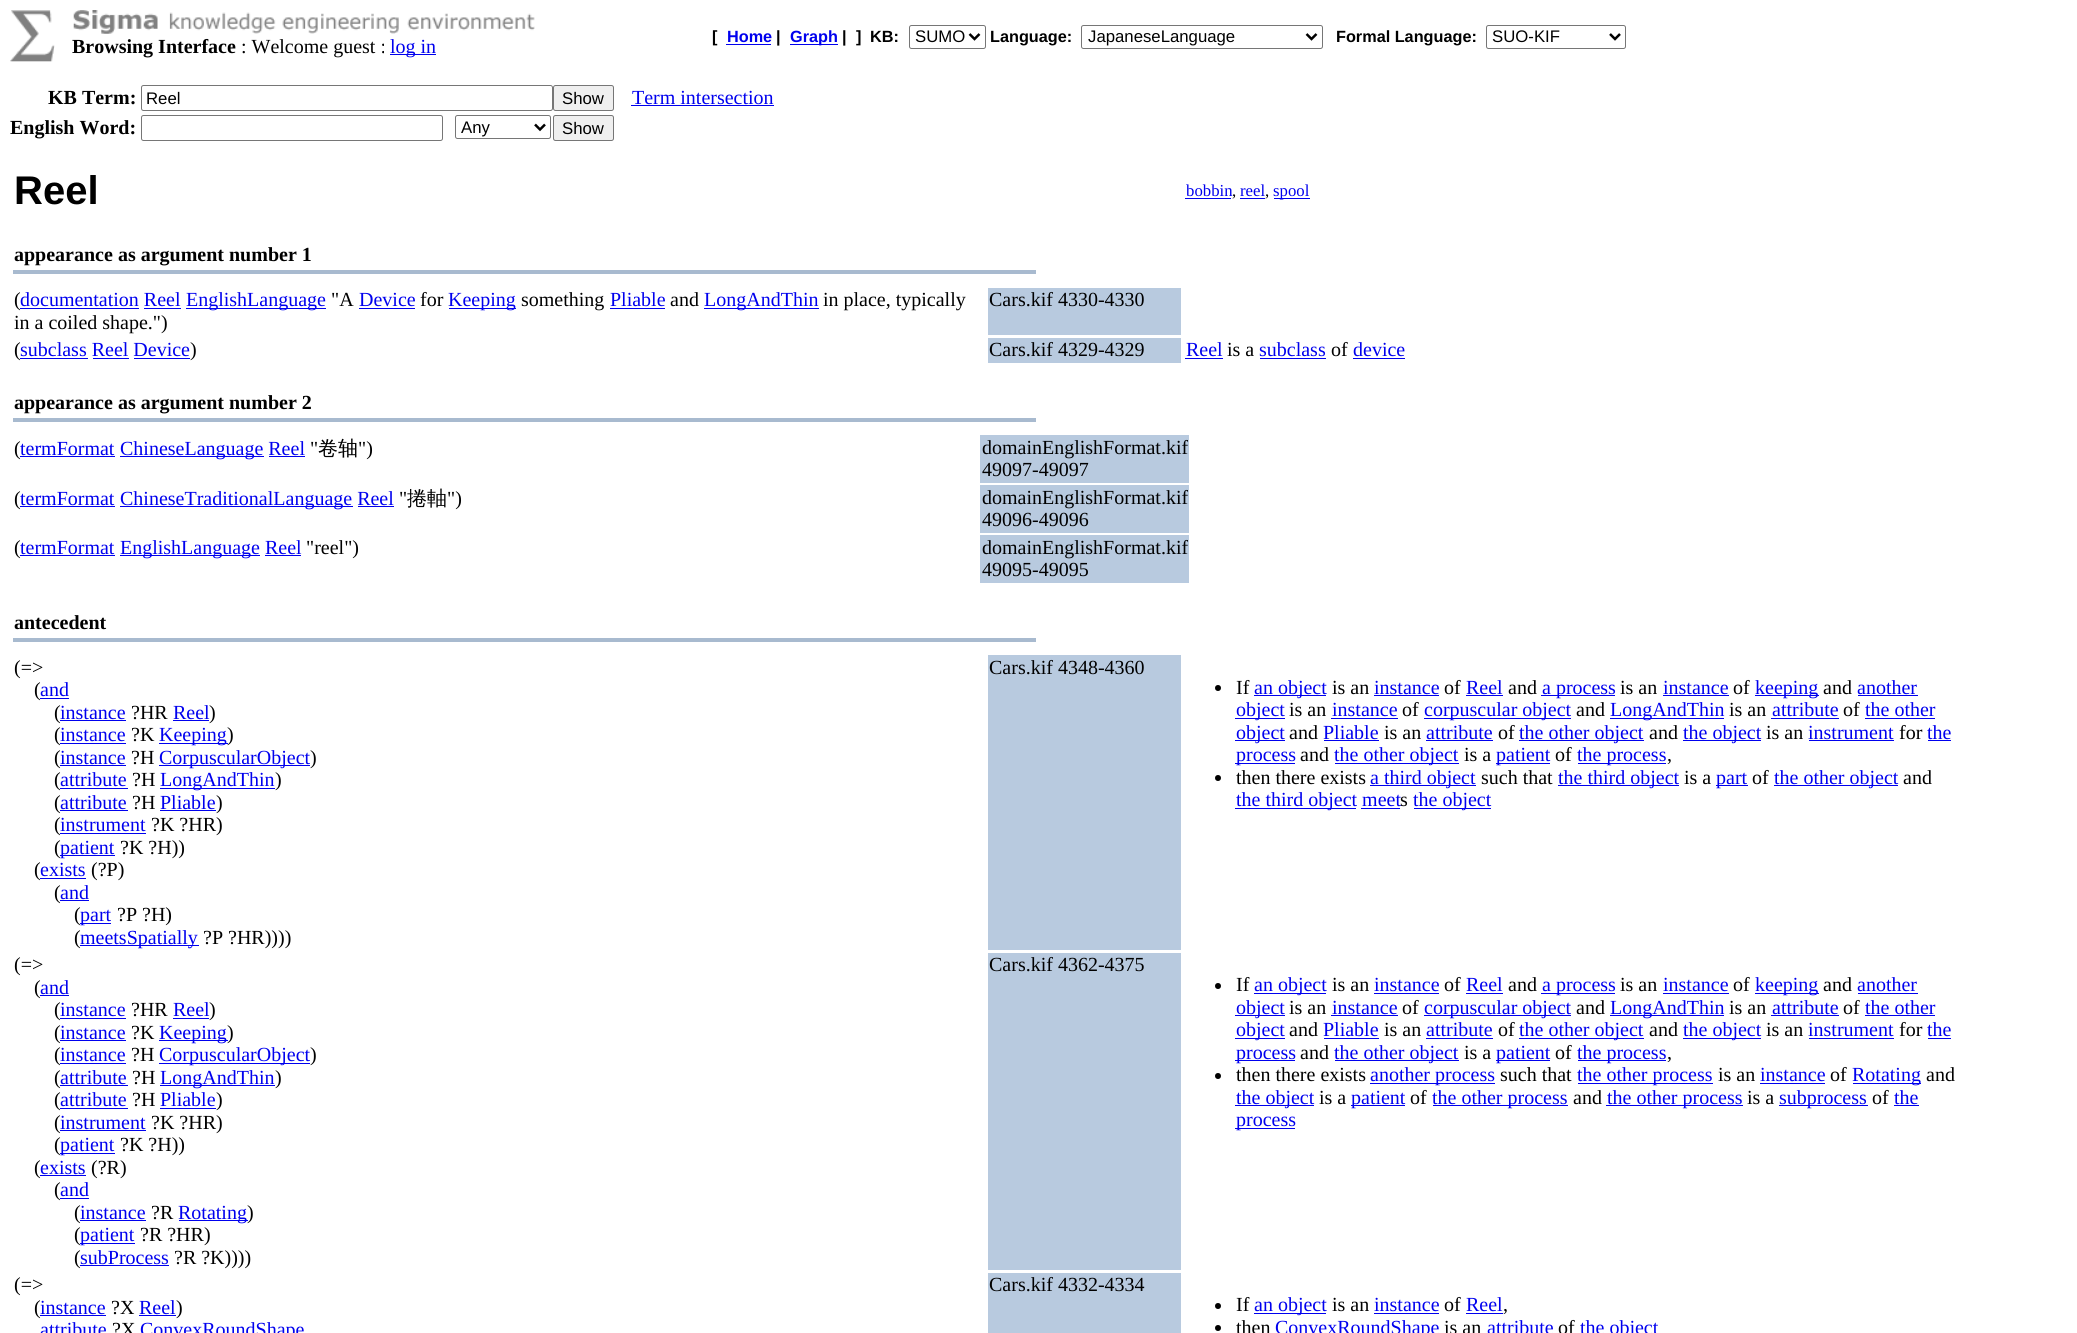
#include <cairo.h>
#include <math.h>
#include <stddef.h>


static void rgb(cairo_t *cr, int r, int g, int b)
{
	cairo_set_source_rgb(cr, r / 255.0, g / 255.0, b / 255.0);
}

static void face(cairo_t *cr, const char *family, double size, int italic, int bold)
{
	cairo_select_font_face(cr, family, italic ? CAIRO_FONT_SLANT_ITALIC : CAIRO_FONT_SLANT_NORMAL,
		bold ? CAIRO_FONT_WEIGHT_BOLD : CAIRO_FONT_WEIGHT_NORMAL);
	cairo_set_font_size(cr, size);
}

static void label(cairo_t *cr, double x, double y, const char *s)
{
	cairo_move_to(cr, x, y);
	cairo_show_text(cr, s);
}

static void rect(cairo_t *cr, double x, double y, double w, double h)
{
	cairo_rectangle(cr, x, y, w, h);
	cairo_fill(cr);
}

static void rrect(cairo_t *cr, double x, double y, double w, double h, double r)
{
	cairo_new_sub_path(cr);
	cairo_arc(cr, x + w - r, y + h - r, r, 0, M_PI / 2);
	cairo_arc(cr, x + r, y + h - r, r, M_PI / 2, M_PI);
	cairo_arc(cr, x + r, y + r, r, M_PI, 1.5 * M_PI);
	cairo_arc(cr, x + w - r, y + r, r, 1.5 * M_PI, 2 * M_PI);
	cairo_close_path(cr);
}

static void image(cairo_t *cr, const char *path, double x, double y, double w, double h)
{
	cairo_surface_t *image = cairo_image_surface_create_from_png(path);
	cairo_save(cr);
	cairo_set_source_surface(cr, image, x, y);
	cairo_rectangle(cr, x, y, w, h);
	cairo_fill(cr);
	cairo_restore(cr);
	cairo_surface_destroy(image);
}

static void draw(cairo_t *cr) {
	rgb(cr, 255, 255, 255);
	cairo_paint(cr);
	image(cr, "image0.png", 10, 10, 45, 52);
	image(cr, "image1.png", 73, 10, 462, 24);
	face(cr, "Liberation Serif", 20, 0, 1);
	rgb(cr, 0, 0, 0);
	label(cr, 72, 53, "Browsing Interface");
	face(cr, "Liberation Serif", 20, 0, 0);
	label(cr, 241, 53, ": Welcome guest :");
	rgb(cr, 0, 0, 238);
	rect(cr, 390, 54, 46, 1);
	label(cr, 390, 53, "log in");
	face(cr, "Liberation Sans", 16.25, 0, 1);
	rgb(cr, 0, 0, 0);
	label(cr, 712, 42, "[");
	rgb(cr, 0, 0, 238);
	label(cr, 727, 42, "Home");
	rect(cr, 726, 44, 45, 1);
	rgb(cr, 0, 0, 0);
	label(cr, 776, 42, "|");
	rgb(cr, 0, 0, 238);
	rect(cr, 790, 44, 48, 1);
	label(cr, 790, 42, "Graph");
	rgb(cr, 0, 0, 0);
	label(cr, 842, 42, "|");
	label(cr, 856, 42, "]");
	label(cr, 870, 42, "KB:");
	rrect(cr, 909.5, 25.5, 76, 23, 2);
	rgb(cr, 118, 118, 118);
	cairo_set_line_width(cr, 1);
	cairo_stroke(cr);
	cairo_new_path(cr);
	cairo_move_to(cr, 969.5, 34);
	cairo_line_to(cr, 974.5, 39);
	cairo_line_to(cr, 979.5, 34);
	rgb(cr, 0, 0, 0);
	cairo_set_line_width(cr, 2.5);
	cairo_stroke(cr);
	face(cr, "Liberation Sans", 16.75, 0, 0);
	label(cr, 915, 42, "SUMO");
	face(cr, "Liberation Sans", 16.25, 0, 1);
	label(cr, 990, 42, "Language:");
	rrect(cr, 1081.5, 25.5, 241, 23, 2);
	rgb(cr, 118, 118, 118);
	cairo_set_line_width(cr, 1);
	cairo_stroke(cr);
	cairo_new_path(cr);
	cairo_move_to(cr, 1306.5, 34);
	cairo_line_to(cr, 1311.5, 39);
	cairo_line_to(cr, 1316.5, 34);
	rgb(cr, 0, 0, 0);
	cairo_set_line_width(cr, 2.5);
	cairo_stroke(cr);
	face(cr, "Liberation Sans", 16.75, 0, 0);
	label(cr, 1088, 42, "JapaneseLanguage");
	face(cr, "Liberation Sans", 16.25, 0, 1);
	label(cr, 1336, 42, "Formal Language:");
	rrect(cr, 1486.5, 25.5, 139, 23, 2);
	rgb(cr, 118, 118, 118);
	cairo_set_line_width(cr, 1);
	cairo_stroke(cr);
	cairo_new_path(cr);
	cairo_move_to(cr, 1610, 34);
	cairo_line_to(cr, 1615, 39);
	cairo_line_to(cr, 1620, 34);
	rgb(cr, 0, 0, 0);
	cairo_set_line_width(cr, 2.5);
	cairo_stroke(cr);
	face(cr, "Liberation Sans", 16.75, 0, 0);
	label(cr, 1492, 42, "SUO-KIF");
	face(cr, "Liberation Serif", 20, 0, 1);
	label(cr, 48, 104, "KB Term:");
	rrect(cr, 141.5, 85.5, 411, 25, 2);
	rgb(cr, 118, 118, 118);
	cairo_set_line_width(cr, 1);
	cairo_stroke(cr);
	face(cr, "Liberation Sans", 16.75, 0, 0);
	rgb(cr, 0, 0, 0);
	label(cr, 146, 104, "Reel");
	rgb(cr, 239, 239, 239);
	rrect(cr, 553.5, 85.5, 60, 25, 2);
	cairo_fill_preserve(cr);
	rgb(cr, 118, 118, 118);
	cairo_stroke(cr);
	rgb(cr, 0, 0, 0);
	label(cr, 562, 104, "Show");
	face(cr, "Liberation Serif", 20, 0, 0);
	rgb(cr, 0, 0, 238);
	label(cr, 632, 104, "Term intersection");
	rect(cr, 631, 105, 143, 1);
	face(cr, "Liberation Serif", 20, 0, 1);
	rgb(cr, 0, 0, 0);
	label(cr, 10, 134, "English Word:");
	rrect(cr, 141.5, 115.5, 301, 25, 2);
	rgb(cr, 118, 118, 118);
	cairo_stroke(cr);
	rrect(cr, 455.5, 115.5, 95, 23, 2);
	cairo_stroke(cr);
	cairo_new_path(cr);
	cairo_move_to(cr, 535, 124.5);
	cairo_line_to(cr, 540, 129.5);
	cairo_line_to(cr, 545, 124.5);
	rgb(cr, 0, 0, 0);
	cairo_set_line_width(cr, 2.5);
	cairo_stroke(cr);
	face(cr, "Liberation Sans", 16.75, 0, 0);
	label(cr, 461, 133, "Any");
	rgb(cr, 239, 239, 239);
	rrect(cr, 553.5, 115.5, 60, 25, 2);
	cairo_fill_preserve(cr);
	rgb(cr, 118, 118, 118);
	cairo_set_line_width(cr, 1);
	cairo_stroke(cr);
	rgb(cr, 0, 0, 0);
	label(cr, 562, 134, "Show");
	face(cr, "Liberation Sans", 40, 0, 1);
	label(cr, 14, 204, "Reel");
	face(cr, "Liberation Serif", 16.75, 0, 0);
	rgb(cr, 0, 0, 238);
	label(cr, 1186, 196, "bobbin");
	rgb(cr, 0, 0, 0);
	label(cr, 1232, 196, ",");
	rgb(cr, 0, 0, 238);
	rect(cr, 1185, 198, 46, 1);
	label(cr, 1240, 196, "reel");
	rgb(cr, 0, 0, 0);
	label(cr, 1265, 196, ",");
	rgb(cr, 0, 0, 238);
	rect(cr, 1240, 198, 25, 1);
	rect(cr, 1274, 198, 36, 1);
	label(cr, 1273, 196, "spool");
	face(cr, "Liberation Serif", 20, 0, 1);
	rgb(cr, 0, 0, 0);
	label(cr, 14, 261, "appearance as argument number 1");
	rgb(cr, 168, 186, 207);
	rect(cr, 13, 270, 1023, 4);
	face(cr, "Liberation Serif", 20, 0, 0);
	rgb(cr, 0, 0, 0);
	label(cr, 14, 306, "(");
	rgb(cr, 0, 0, 238);
	label(cr, 20, 306, "documentation Reel");
	rect(cr, 20, 308, 119, 1);
	rect(cr, 186, 308, 140, 1);
	label(cr, 186, 306, "EnglishLanguage");
	rgb(cr, 0, 0, 0);
	label(cr, 331, 306, "\"A");
	rgb(cr, 0, 0, 238);
	label(cr, 359, 306, "Device");
	rect(cr, 359, 308, 56, 1);
	rgb(cr, 0, 0, 0);
	label(cr, 420, 306, "for");
	rgb(cr, 0, 0, 238);
	rect(cr, 449, 308, 67, 1);
	label(cr, 448, 306, "Keeping");
	rgb(cr, 0, 0, 0);
	label(cr, 521, 306, "something");
	rgb(cr, 0, 0, 238);
	label(cr, 610, 306, "Pliable");
	rect(cr, 610, 308, 55, 1);
	rgb(cr, 0, 0, 0);
	label(cr, 670, 306, "and");
	rgb(cr, 0, 0, 238);
	rect(cr, 704, 308, 115, 1);
	label(cr, 704, 306, "LongAndThin");
	rgb(cr, 0, 0, 0);
	label(cr, 823, 306, "in place, typically");
	rgb(cr, 0, 0, 238);
	rect(cr, 144, 308, 37, 1);
	rgb(cr, 0, 0, 0);
	label(cr, 14, 329, "in a coiled shape.\")");
	rgb(cr, 184, 202, 223);
	rect(cr, 988, 288, 193, 47);
	rgb(cr, 0, 0, 0);
	label(cr, 989, 306, "Cars.kif 4330-4330");
	label(cr, 14, 356, "(");
	rgb(cr, 0, 0, 238);
	label(cr, 20, 356, "subclass Reel Device");
	rect(cr, 20, 358, 68, 1);
	rgb(cr, 0, 0, 0);
	label(cr, 190, 356, ")");
	rgb(cr, 0, 0, 238);
	rect(cr, 93, 358, 36, 1);
	rect(cr, 134, 358, 56, 1);
	rgb(cr, 184, 202, 223);
	rect(cr, 988, 338, 193, 25);
	rgb(cr, 0, 0, 0);
	label(cr, 989, 356, "Cars.kif 4329-4329");
	rgb(cr, 0, 0, 238);
	label(cr, 1186, 356, "Reel");
	rect(cr, 1185, 358, 38, 1);
	rgb(cr, 0, 0, 0);
	label(cr, 1227, 356, "is a");
	rgb(cr, 0, 0, 238);
	label(cr, 1259, 356, "subclass");
	rect(cr, 1260, 358, 66, 1);
	rgb(cr, 0, 0, 0);
	label(cr, 1331, 356, "of");
	rgb(cr, 0, 0, 238);
	label(cr, 1353, 356, "device");
	rect(cr, 1353, 358, 52, 1);
	face(cr, "Liberation Serif", 20, 0, 1);
	rgb(cr, 0, 0, 0);
	label(cr, 14, 409, "appearance as argument number 2");
	rgb(cr, 168, 186, 207);
	rect(cr, 13, 418, 1023, 4);
	face(cr, "Liberation Serif", 20, 0, 0);
	rgb(cr, 0, 0, 0);
	label(cr, 14, 455, "(");
	rgb(cr, 0, 0, 238);
	label(cr, 20, 455, "termFormat");
	rect(cr, 20, 456, 95, 1);
	rect(cr, 120, 456, 144, 1);
	label(cr, 120, 455, "ChineseLanguage Reel");
	rgb(cr, 0, 0, 0);
	label(cr, 310, 455, "\"");
	face(cr, "WenQuanYi Zen Hei Medium", 20, 0, 0);
	label(cr, 318, 455, "卷轴");
	face(cr, "Liberation Serif", 20, 0, 0);
	label(cr, 358, 455, "\")");
	rgb(cr, 0, 0, 238);
	rect(cr, 269, 456, 36, 1);
	rgb(cr, 184, 202, 223);
	rect(cr, 980, 435, 209, 48);
	rgb(cr, 0, 0, 0);
	label(cr, 982, 454, "domainEnglishFormat.kif");
	label(cr, 982, 476, "49097-49097");
	label(cr, 14, 505, "(");
	rgb(cr, 0, 0, 238);
	label(cr, 20, 505, "termFormat");
	rect(cr, 20, 506, 95, 1);
	rect(cr, 120, 506, 233, 1);
	label(cr, 120, 505, "ChineseTraditionalLanguage Reel");
	rgb(cr, 0, 0, 0);
	label(cr, 399, 505, "\"");
	face(cr, "WenQuanYi Zen Hei Medium", 20, 0, 0);
	label(cr, 407, 505, "捲軸");
	face(cr, "Liberation Serif", 20, 0, 0);
	label(cr, 447, 505, "\")");
	rgb(cr, 0, 0, 238);
	rect(cr, 358, 506, 36, 1);
	rgb(cr, 184, 202, 223);
	rect(cr, 980, 485, 209, 48);
	rgb(cr, 0, 0, 0);
	label(cr, 982, 504, "domainEnglishFormat.kif");
	label(cr, 982, 526, "49096-49096");
	label(cr, 14, 554, "(");
	rgb(cr, 0, 0, 238);
	label(cr, 20, 554, "termFormat");
	rect(cr, 20, 555, 95, 1);
	rect(cr, 120, 555, 140, 1);
	label(cr, 120, 554, "EnglishLanguage Reel");
	rgb(cr, 0, 0, 0);
	label(cr, 306, 554, "\"reel\")");
	rgb(cr, 0, 0, 238);
	rect(cr, 265, 555, 36, 1);
	rgb(cr, 184, 202, 223);
	rect(cr, 980, 535, 209, 48);
	rgb(cr, 0, 0, 0);
	label(cr, 982, 554, "domainEnglishFormat.kif");
	label(cr, 982, 576, "49095-49095");
	face(cr, "Liberation Serif", 20, 0, 1);
	label(cr, 14, 629, "antecedent");
	rgb(cr, 168, 186, 207);
	rect(cr, 13, 638, 1023, 4);
	face(cr, "Liberation Serif", 20, 0, 0);
	rgb(cr, 0, 0, 0);
	label(cr, 14, 674, "(=>");
	label(cr, 34, 696, "(");
	rgb(cr, 0, 0, 238);
	label(cr, 40, 696, "and");
	rect(cr, 40, 698, 29, 1);
	rgb(cr, 0, 0, 0);
	label(cr, 54, 719, "(");
	rgb(cr, 0, 0, 238);
	label(cr, 60, 719, "instance");
	rect(cr, 60, 720, 66, 1);
	rgb(cr, 0, 0, 0);
	label(cr, 131, 719, "?HR");
	rgb(cr, 0, 0, 238);
	label(cr, 173, 719, "Reel");
	rect(cr, 173, 720, 36, 1);
	rgb(cr, 0, 0, 0);
	label(cr, 209, 719, ")");
	label(cr, 54, 741, "(");
	rgb(cr, 0, 0, 238);
	label(cr, 60, 741, "instance");
	rect(cr, 60, 743, 66, 1);
	rgb(cr, 0, 0, 0);
	label(cr, 131, 741, "?K");
	rgb(cr, 0, 0, 238);
	rect(cr, 159, 743, 69, 1);
	label(cr, 159, 741, "Keeping");
	rgb(cr, 0, 0, 0);
	label(cr, 227, 741, ")");
	label(cr, 54, 764, "(");
	rgb(cr, 0, 0, 238);
	label(cr, 60, 764, "instance");
	rect(cr, 60, 765, 66, 1);
	rgb(cr, 0, 0, 0);
	label(cr, 131, 764, "?H");
	rgb(cr, 0, 0, 238);
	rect(cr, 159, 765, 151, 1);
	label(cr, 159, 764, "CorpuscularObject");
	rgb(cr, 0, 0, 0);
	label(cr, 310, 764, ")");
	label(cr, 54, 786, "(");
	rgb(cr, 0, 0, 238);
	label(cr, 60, 786, "attribute");
	rect(cr, 60, 788, 68, 1);
	rgb(cr, 0, 0, 0);
	label(cr, 132, 786, "?H");
	rgb(cr, 0, 0, 238);
	rect(cr, 160, 788, 115, 1);
	label(cr, 160, 786, "LongAndThin");
	rgb(cr, 0, 0, 0);
	label(cr, 275, 786, ")");
	label(cr, 54, 809, "(");
	rgb(cr, 0, 0, 238);
	label(cr, 60, 809, "attribute");
	rect(cr, 60, 810, 68, 1);
	rgb(cr, 0, 0, 0);
	label(cr, 132, 809, "?H");
	rgb(cr, 0, 0, 238);
	label(cr, 160, 809, "Pliable");
	rect(cr, 160, 810, 56, 1);
	rgb(cr, 0, 0, 0);
	label(cr, 216, 809, ")");
	label(cr, 54, 831, "(");
	rgb(cr, 0, 0, 238);
	label(cr, 60, 831, "instrument");
	rect(cr, 60, 833, 86, 1);
	rgb(cr, 0, 0, 0);
	label(cr, 151, 831, "?K ?HR)");
	label(cr, 54, 854, "(");
	rgb(cr, 0, 0, 238);
	rect(cr, 60, 855, 55, 1);
	label(cr, 60, 854, "patient");
	rgb(cr, 0, 0, 0);
	label(cr, 120, 854, "?K ?H))");
	label(cr, 34, 876, "(");
	rgb(cr, 0, 0, 238);
	label(cr, 40, 876, "exists");
	rect(cr, 40, 878, 46, 1);
	rgb(cr, 0, 0, 0);
	label(cr, 91, 876, "(?P)");
	label(cr, 54, 899, "(");
	rgb(cr, 0, 0, 238);
	label(cr, 60, 899, "and");
	rect(cr, 60, 900, 29, 1);
	rgb(cr, 0, 0, 0);
	label(cr, 74, 921, "(");
	rgb(cr, 0, 0, 238);
	rect(cr, 80, 923, 31, 1);
	label(cr, 80, 921, "part");
	rgb(cr, 0, 0, 0);
	label(cr, 117, 921, "?P ?H)");
	label(cr, 74, 944, "(");
	rgb(cr, 0, 0, 238);
	rect(cr, 80, 945, 119, 1);
	label(cr, 80, 944, "meetsSpatially");
	rgb(cr, 0, 0, 0);
	label(cr, 203, 944, "?P ?HR))))");
	rgb(cr, 184, 202, 223);
	rect(cr, 988, 655, 193, 295);
	rgb(cr, 0, 0, 0);
	label(cr, 989, 674, "Cars.kif 4348-4360");
	cairo_new_path(cr);
	cairo_arc(cr, 1218, 688, 3, 0, 2 * M_PI);
	cairo_fill(cr);
	label(cr, 1236, 694, "If");
	rgb(cr, 0, 0, 238);
	rect(cr, 1254, 695, 72, 1);
	label(cr, 1254, 694, "an object");
	rgb(cr, 0, 0, 0);
	label(cr, 1332, 694, "is an");
	rgb(cr, 0, 0, 238);
	label(cr, 1374, 694, "instance");
	rect(cr, 1374, 695, 65, 1);
	rgb(cr, 0, 0, 0);
	label(cr, 1444, 694, "of");
	rgb(cr, 0, 0, 238);
	label(cr, 1466, 694, "Reel");
	rect(cr, 1466, 695, 37, 1);
	rgb(cr, 0, 0, 0);
	label(cr, 1508, 694, "and");
	rgb(cr, 0, 0, 238);
	rect(cr, 1541, 695, 74, 1);
	label(cr, 1542, 694, "a process");
	rgb(cr, 0, 0, 0);
	label(cr, 1620, 694, "is an");
	rgb(cr, 0, 0, 238);
	label(cr, 1663, 694, "instance");
	rect(cr, 1663, 695, 66, 1);
	rgb(cr, 0, 0, 0);
	label(cr, 1733, 694, "of");
	rgb(cr, 0, 0, 238);
	rect(cr, 1755, 695, 64, 1);
	label(cr, 1755, 694, "keeping");
	rgb(cr, 0, 0, 0);
	label(cr, 1823, 694, "and");
	rgb(cr, 0, 0, 238);
	label(cr, 1857, 694, "another");
	rect(cr, 1858, 695, 60, 1);
	rect(cr, 1235, 718, 50, 1);
	label(cr, 1236, 716, "object");
	rgb(cr, 0, 0, 0);
	label(cr, 1289, 716, "is an");
	rgb(cr, 0, 0, 238);
	label(cr, 1332, 716, "instance");
	rect(cr, 1331, 718, 67, 1);
	rgb(cr, 0, 0, 0);
	label(cr, 1402, 716, "of");
	rgb(cr, 0, 0, 238);
	rect(cr, 1424, 718, 147, 1);
	label(cr, 1424, 716, "corpuscular object");
	rgb(cr, 0, 0, 0);
	label(cr, 1576, 716, "and");
	rgb(cr, 0, 0, 238);
	rect(cr, 1610, 718, 114, 1);
	label(cr, 1610, 716, "LongAndThin");
	rgb(cr, 0, 0, 0);
	label(cr, 1729, 716, "is an");
	rgb(cr, 0, 0, 238);
	label(cr, 1772, 716, "attribute");
	rect(cr, 1771, 718, 68, 1);
	rgb(cr, 0, 0, 0);
	label(cr, 1843, 716, "of");
	rgb(cr, 0, 0, 238);
	label(cr, 1865, 716, "the other");
	rect(cr, 1865, 718, 70, 1);
	rect(cr, 1235, 740, 50, 1);
	label(cr, 1236, 739, "object");
	rgb(cr, 0, 0, 0);
	label(cr, 1289, 739, "and");
	rgb(cr, 0, 0, 238);
	label(cr, 1323, 739, "Pliable");
	rect(cr, 1324, 740, 55, 1);
	rgb(cr, 0, 0, 0);
	label(cr, 1384, 739, "is an");
	rgb(cr, 0, 0, 238);
	label(cr, 1426, 739, "attribute");
	rect(cr, 1426, 740, 67, 1);
	rgb(cr, 0, 0, 0);
	label(cr, 1498, 739, "of");
	rgb(cr, 0, 0, 238);
	rect(cr, 1519, 740, 125, 1);
	label(cr, 1519, 739, "the other object");
	rgb(cr, 0, 0, 0);
	label(cr, 1649, 739, "and");
	rgb(cr, 0, 0, 238);
	rect(cr, 1683, 740, 78, 1);
	label(cr, 1683, 739, "the object");
	rgb(cr, 0, 0, 0);
	label(cr, 1766, 739, "is an");
	rgb(cr, 0, 0, 238);
	label(cr, 1808, 739, "instrument");
	rect(cr, 1809, 740, 85, 1);
	rgb(cr, 0, 0, 0);
	label(cr, 1899, 739, "for");
	rgb(cr, 0, 0, 238);
	label(cr, 1927, 739, "the");
	rect(cr, 1928, 740, 23, 1);
	rect(cr, 1235, 763, 60, 1);
	label(cr, 1236, 761, "process");
	rgb(cr, 0, 0, 0);
	label(cr, 1300, 761, "and");
	rgb(cr, 0, 0, 238);
	rect(cr, 1335, 763, 124, 1);
	label(cr, 1334, 761, "the other object");
	rgb(cr, 0, 0, 0);
	label(cr, 1464, 761, "is a");
	rgb(cr, 0, 0, 238);
	rect(cr, 1496, 763, 54, 1);
	label(cr, 1496, 761, "patient");
	rgb(cr, 0, 0, 0);
	label(cr, 1555, 761, "of");
	rgb(cr, 0, 0, 238);
	rect(cr, 1578, 763, 88, 1);
	label(cr, 1577, 761, "the process");
	rgb(cr, 0, 0, 0);
	label(cr, 1667, 761, ",");
	cairo_new_path(cr);
	cairo_arc(cr, 1218, 778, 3, 0, 2 * M_PI);
	cairo_fill(cr);
	label(cr, 1236, 784, "then there exists");
	rgb(cr, 0, 0, 238);
	rect(cr, 1370, 785, 106, 1);
	label(cr, 1370, 784, "a third object");
	rgb(cr, 0, 0, 0);
	label(cr, 1481, 784, "such that");
	rgb(cr, 0, 0, 238);
	rect(cr, 1558, 785, 121, 1);
	label(cr, 1558, 784, "the third object");
	rgb(cr, 0, 0, 0);
	label(cr, 1684, 784, "is a");
	rgb(cr, 0, 0, 238);
	rect(cr, 1716, 785, 32, 1);
	label(cr, 1716, 784, "part");
	rgb(cr, 0, 0, 0);
	label(cr, 1752, 784, "of");
	rgb(cr, 0, 0, 238);
	rect(cr, 1774, 785, 124, 1);
	label(cr, 1774, 784, "the other object");
	rgb(cr, 0, 0, 0);
	label(cr, 1903, 784, "and");
	rgb(cr, 0, 0, 238);
	rect(cr, 1235, 808, 121, 1);
	label(cr, 1236, 806, "the third object meet");
	rgb(cr, 0, 0, 0);
	label(cr, 1400, 806, "s");
	rgb(cr, 0, 0, 238);
	rect(cr, 1414, 808, 77, 1);
	label(cr, 1413, 806, "the object");
	rect(cr, 1361, 808, 39, 1);
	rgb(cr, 0, 0, 0);
	label(cr, 14, 971, "(=>");
	label(cr, 34, 994, "(");
	rgb(cr, 0, 0, 238);
	label(cr, 40, 994, "and");
	rect(cr, 40, 995, 29, 1);
	rgb(cr, 0, 0, 0);
	label(cr, 54, 1016, "(");
	rgb(cr, 0, 0, 238);
	label(cr, 60, 1016, "instance");
	rect(cr, 60, 1018, 66, 1);
	rgb(cr, 0, 0, 0);
	label(cr, 131, 1016, "?HR");
	rgb(cr, 0, 0, 238);
	label(cr, 173, 1016, "Reel");
	rect(cr, 173, 1018, 36, 1);
	rgb(cr, 0, 0, 0);
	label(cr, 209, 1016, ")");
	label(cr, 54, 1039, "(");
	rgb(cr, 0, 0, 238);
	label(cr, 60, 1039, "instance");
	rect(cr, 60, 1040, 66, 1);
	rgb(cr, 0, 0, 0);
	label(cr, 131, 1039, "?K");
	rgb(cr, 0, 0, 238);
	rect(cr, 159, 1040, 69, 1);
	label(cr, 159, 1039, "Keeping");
	rgb(cr, 0, 0, 0);
	label(cr, 227, 1039, ")");
	label(cr, 54, 1061, "(");
	rgb(cr, 0, 0, 238);
	label(cr, 60, 1061, "instance");
	rect(cr, 60, 1063, 66, 1);
	rgb(cr, 0, 0, 0);
	label(cr, 131, 1061, "?H");
	rgb(cr, 0, 0, 238);
	rect(cr, 159, 1063, 151, 1);
	label(cr, 159, 1061, "CorpuscularObject");
	rgb(cr, 0, 0, 0);
	label(cr, 310, 1061, ")");
	label(cr, 54, 1084, "(");
	rgb(cr, 0, 0, 238);
	label(cr, 60, 1084, "attribute");
	rect(cr, 60, 1085, 68, 1);
	rgb(cr, 0, 0, 0);
	label(cr, 132, 1084, "?H");
	rgb(cr, 0, 0, 238);
	rect(cr, 160, 1085, 115, 1);
	label(cr, 160, 1084, "LongAndThin");
	rgb(cr, 0, 0, 0);
	label(cr, 275, 1084, ")");
	label(cr, 54, 1106, "(");
	rgb(cr, 0, 0, 238);
	label(cr, 60, 1106, "attribute");
	rect(cr, 60, 1108, 68, 1);
	rgb(cr, 0, 0, 0);
	label(cr, 132, 1106, "?H");
	rgb(cr, 0, 0, 238);
	label(cr, 160, 1106, "Pliable");
	rect(cr, 160, 1108, 56, 1);
	rgb(cr, 0, 0, 0);
	label(cr, 216, 1106, ")");
	label(cr, 54, 1129, "(");
	rgb(cr, 0, 0, 238);
	label(cr, 60, 1129, "instrument");
	rect(cr, 60, 1130, 86, 1);
	rgb(cr, 0, 0, 0);
	label(cr, 151, 1129, "?K ?HR)");
	label(cr, 54, 1151, "(");
	rgb(cr, 0, 0, 238);
	rect(cr, 60, 1153, 55, 1);
	label(cr, 60, 1151, "patient");
	rgb(cr, 0, 0, 0);
	label(cr, 120, 1151, "?K ?H))");
	label(cr, 34, 1174, "(");
	rgb(cr, 0, 0, 238);
	label(cr, 40, 1174, "exists");
	rect(cr, 40, 1175, 46, 1);
	rgb(cr, 0, 0, 0);
	label(cr, 91, 1174, "(?R)");
	label(cr, 54, 1196, "(");
	rgb(cr, 0, 0, 238);
	label(cr, 60, 1196, "and");
	rect(cr, 60, 1198, 29, 1);
	rgb(cr, 0, 0, 0);
	label(cr, 74, 1219, "(");
	rgb(cr, 0, 0, 238);
	label(cr, 80, 1219, "instance");
	rect(cr, 80, 1220, 66, 1);
	rgb(cr, 0, 0, 0);
	label(cr, 151, 1219, "?R");
	rgb(cr, 0, 0, 238);
	rect(cr, 179, 1220, 69, 1);
	label(cr, 178, 1219, "Rotating");
	rgb(cr, 0, 0, 0);
	label(cr, 247, 1219, ")");
	label(cr, 74, 1241, "(");
	rgb(cr, 0, 0, 238);
	rect(cr, 80, 1243, 55, 1);
	label(cr, 80, 1241, "patient");
	rgb(cr, 0, 0, 0);
	label(cr, 140, 1241, "?R ?HR)");
	label(cr, 74, 1264, "(");
	rgb(cr, 0, 0, 238);
	label(cr, 80, 1264, "subProcess");
	rect(cr, 80, 1265, 89, 1);
	rgb(cr, 0, 0, 0);
	label(cr, 174, 1264, "?R ?K))))");
	rgb(cr, 184, 202, 223);
	rect(cr, 988, 953, 193, 317);
	rgb(cr, 0, 0, 0);
	label(cr, 989, 971, "Cars.kif 4362-4375");
	cairo_new_path(cr);
	cairo_arc(cr, 1218, 986, 3, 0, 2 * M_PI);
	cairo_fill(cr);
	label(cr, 1236, 991, "If");
	rgb(cr, 0, 0, 238);
	rect(cr, 1254, 993, 72, 1);
	label(cr, 1254, 991, "an object");
	rgb(cr, 0, 0, 0);
	label(cr, 1332, 991, "is an");
	rgb(cr, 0, 0, 238);
	label(cr, 1374, 991, "instance");
	rect(cr, 1374, 993, 65, 1);
	rgb(cr, 0, 0, 0);
	label(cr, 1444, 991, "of");
	rgb(cr, 0, 0, 238);
	label(cr, 1466, 991, "Reel");
	rect(cr, 1466, 993, 37, 1);
	rgb(cr, 0, 0, 0);
	label(cr, 1508, 991, "and");
	rgb(cr, 0, 0, 238);
	rect(cr, 1541, 993, 74, 1);
	label(cr, 1542, 991, "a process");
	rgb(cr, 0, 0, 0);
	label(cr, 1620, 991, "is an");
	rgb(cr, 0, 0, 238);
	label(cr, 1663, 991, "instance");
	rect(cr, 1663, 993, 66, 1);
	rgb(cr, 0, 0, 0);
	label(cr, 1733, 991, "of");
	rgb(cr, 0, 0, 238);
	rect(cr, 1755, 993, 64, 1);
	label(cr, 1755, 991, "keeping");
	rgb(cr, 0, 0, 0);
	label(cr, 1823, 991, "and");
	rgb(cr, 0, 0, 238);
	label(cr, 1857, 991, "another");
	rect(cr, 1858, 993, 60, 1);
	rect(cr, 1235, 1015, 50, 1);
	label(cr, 1236, 1014, "object");
	rgb(cr, 0, 0, 0);
	label(cr, 1289, 1014, "is an");
	rgb(cr, 0, 0, 238);
	label(cr, 1332, 1014, "instance");
	rect(cr, 1331, 1015, 67, 1);
	rgb(cr, 0, 0, 0);
	label(cr, 1402, 1014, "of");
	rgb(cr, 0, 0, 238);
	rect(cr, 1424, 1015, 147, 1);
	label(cr, 1424, 1014, "corpuscular object");
	rgb(cr, 0, 0, 0);
	label(cr, 1576, 1014, "and");
	rgb(cr, 0, 0, 238);
	rect(cr, 1610, 1015, 114, 1);
	label(cr, 1610, 1014, "LongAndThin");
	rgb(cr, 0, 0, 0);
	label(cr, 1729, 1014, "is an");
	rgb(cr, 0, 0, 238);
	label(cr, 1772, 1014, "attribute");
	rect(cr, 1771, 1015, 68, 1);
	rgb(cr, 0, 0, 0);
	label(cr, 1843, 1014, "of");
	rgb(cr, 0, 0, 238);
	label(cr, 1865, 1014, "the other");
	rect(cr, 1865, 1015, 70, 1);
	rect(cr, 1235, 1038, 50, 1);
	label(cr, 1236, 1036, "object");
	rgb(cr, 0, 0, 0);
	label(cr, 1289, 1036, "and");
	rgb(cr, 0, 0, 238);
	label(cr, 1323, 1036, "Pliable");
	rect(cr, 1324, 1038, 55, 1);
	rgb(cr, 0, 0, 0);
	label(cr, 1384, 1036, "is an");
	rgb(cr, 0, 0, 238);
	label(cr, 1426, 1036, "attribute");
	rect(cr, 1426, 1038, 67, 1);
	rgb(cr, 0, 0, 0);
	label(cr, 1498, 1036, "of");
	rgb(cr, 0, 0, 238);
	rect(cr, 1519, 1038, 125, 1);
	label(cr, 1519, 1036, "the other object");
	rgb(cr, 0, 0, 0);
	label(cr, 1649, 1036, "and");
	rgb(cr, 0, 0, 238);
	rect(cr, 1683, 1038, 78, 1);
	label(cr, 1683, 1036, "the object");
	rgb(cr, 0, 0, 0);
	label(cr, 1766, 1036, "is an");
	rgb(cr, 0, 0, 238);
	label(cr, 1808, 1036, "instrument");
	rect(cr, 1809, 1038, 85, 1);
	rgb(cr, 0, 0, 0);
	label(cr, 1899, 1036, "for");
	rgb(cr, 0, 0, 238);
	label(cr, 1927, 1036, "the");
	rect(cr, 1928, 1038, 23, 1);
	rect(cr, 1235, 1060, 60, 1);
	label(cr, 1236, 1059, "process");
	rgb(cr, 0, 0, 0);
	label(cr, 1300, 1059, "and");
	rgb(cr, 0, 0, 238);
	rect(cr, 1335, 1060, 124, 1);
	label(cr, 1334, 1059, "the other object");
	rgb(cr, 0, 0, 0);
	label(cr, 1464, 1059, "is a");
	rgb(cr, 0, 0, 238);
	rect(cr, 1496, 1060, 54, 1);
	label(cr, 1496, 1059, "patient");
	rgb(cr, 0, 0, 0);
	label(cr, 1555, 1059, "of");
	rgb(cr, 0, 0, 238);
	rect(cr, 1578, 1060, 88, 1);
	label(cr, 1577, 1059, "the process");
	rgb(cr, 0, 0, 0);
	label(cr, 1667, 1059, ",");
	cairo_new_path(cr);
	cairo_arc(cr, 1218, 1076, 3, 0, 2 * M_PI);
	cairo_fill(cr);
	label(cr, 1236, 1081, "then there exists");
	rgb(cr, 0, 0, 238);
	rect(cr, 1370, 1083, 125, 1);
	label(cr, 1370, 1081, "another process");
	rgb(cr, 0, 0, 0);
	label(cr, 1500, 1081, "such that");
	rgb(cr, 0, 0, 238);
	rect(cr, 1578, 1083, 135, 1);
	label(cr, 1577, 1081, "the other process");
	rgb(cr, 0, 0, 0);
	label(cr, 1718, 1081, "is an");
	rgb(cr, 0, 0, 238);
	label(cr, 1760, 1081, "instance");
	rect(cr, 1760, 1083, 65, 1);
	rgb(cr, 0, 0, 0);
	label(cr, 1830, 1081, "of");
	rgb(cr, 0, 0, 238);
	rect(cr, 1853, 1083, 68, 1);
	label(cr, 1852, 1081, "Rotating");
	rgb(cr, 0, 0, 0);
	label(cr, 1926, 1081, "and");
	rgb(cr, 0, 0, 238);
	rect(cr, 1235, 1105, 79, 1);
	label(cr, 1236, 1104, "the object");
	rgb(cr, 0, 0, 0);
	label(cr, 1319, 1104, "is a");
	rgb(cr, 0, 0, 238);
	rect(cr, 1351, 1105, 54, 1);
	label(cr, 1351, 1104, "patient");
	rgb(cr, 0, 0, 0);
	label(cr, 1410, 1104, "of");
	rgb(cr, 0, 0, 238);
	rect(cr, 1433, 1105, 135, 1);
	label(cr, 1432, 1104, "the other process");
	rgb(cr, 0, 0, 0);
	label(cr, 1573, 1104, "and");
	rgb(cr, 0, 0, 238);
	rect(cr, 1606, 1105, 137, 1);
	label(cr, 1607, 1104, "the other process");
	rgb(cr, 0, 0, 0);
	label(cr, 1747, 1104, "is a");
	rgb(cr, 0, 0, 238);
	rect(cr, 1779, 1105, 89, 1);
	label(cr, 1779, 1104, "subprocess");
	rgb(cr, 0, 0, 0);
	label(cr, 1872, 1104, "of");
	rgb(cr, 0, 0, 238);
	label(cr, 1894, 1104, "the");
	rect(cr, 1894, 1105, 25, 1);
	rect(cr, 1235, 1128, 60, 1);
	label(cr, 1236, 1126, "process");
	rgb(cr, 0, 0, 0);
	label(cr, 14, 1291, "(=>");
	label(cr, 34, 1314, "(");
	rgb(cr, 0, 0, 238);
	label(cr, 40, 1314, "instance");
	rect(cr, 40, 1315, 66, 1);
	rgb(cr, 0, 0, 0);
	label(cr, 111, 1314, "?X");
	rgb(cr, 0, 0, 238);
	label(cr, 139, 1314, "Reel");
	rect(cr, 139, 1315, 37, 1);
	rgb(cr, 0, 0, 0);
	label(cr, 176, 1314, ")");
	rgb(cr, 0, 0, 238);
	label(cr, 40, 1336, "attribute");
	rgb(cr, 0, 0, 0);
	label(cr, 112, 1336, "?X");
	rgb(cr, 0, 0, 238);
	label(cr, 140, 1336, "ConvexRoundShape");
	rgb(cr, 184, 202, 223);
	rect(cr, 988, 1273, 193, 60);
	rgb(cr, 0, 0, 0);
	label(cr, 989, 1291, "Cars.kif 4332-4334");
	cairo_new_path(cr);
	cairo_arc(cr, 1218, 1306, 3, 0, 2 * M_PI);
	cairo_fill(cr);
	label(cr, 1236, 1311, "If");
	rgb(cr, 0, 0, 238);
	rect(cr, 1254, 1313, 72, 1);
	label(cr, 1254, 1311, "an object");
	rgb(cr, 0, 0, 0);
	label(cr, 1332, 1311, "is an");
	rgb(cr, 0, 0, 238);
	label(cr, 1374, 1311, "instance");
	rect(cr, 1374, 1313, 65, 1);
	rgb(cr, 0, 0, 0);
	label(cr, 1444, 1311, "of");
	rgb(cr, 0, 0, 238);
	label(cr, 1466, 1311, "Reel");
	rect(cr, 1466, 1313, 37, 1);
	rgb(cr, 0, 0, 0);
	label(cr, 1503, 1311, ",");
	cairo_new_path(cr);
	cairo_arc(cr, 1218, 1328, 3, 0, 2 * M_PI);
	cairo_fill(cr);
	label(cr, 1236, 1334, "then");
	rgb(cr, 0, 0, 238);
	label(cr, 1275, 1334, "ConvexRoundShape");
	rgb(cr, 0, 0, 0);
	label(cr, 1444, 1334, "is an");
	rgb(cr, 0, 0, 238);
	label(cr, 1487, 1334, "attribute");
	rgb(cr, 0, 0, 0);
	label(cr, 1558, 1334, "of");
	rgb(cr, 0, 0, 238);
	label(cr, 1580, 1334, "the object");
}

int main(void) {
	cairo_surface_t *surface = cairo_image_surface_create(CAIRO_FORMAT_RGB24, 2077, 1333);
	cairo_t *cr = cairo_create(surface);
	cairo_font_options_t *options = cairo_font_options_create();
	cairo_font_options_set_hint_metrics(options, CAIRO_HINT_METRICS_OFF);
	cairo_font_options_set_hint_style(options, CAIRO_HINT_STYLE_NONE);
	cairo_set_font_options(cr, options);
	cairo_set_miter_limit(cr, 4);
	draw(cr);
	cairo_surface_write_to_png(surface, "render.png");
	cairo_font_options_destroy(options);
	cairo_destroy(cr);
	cairo_surface_destroy(surface);
	return 0;
}
